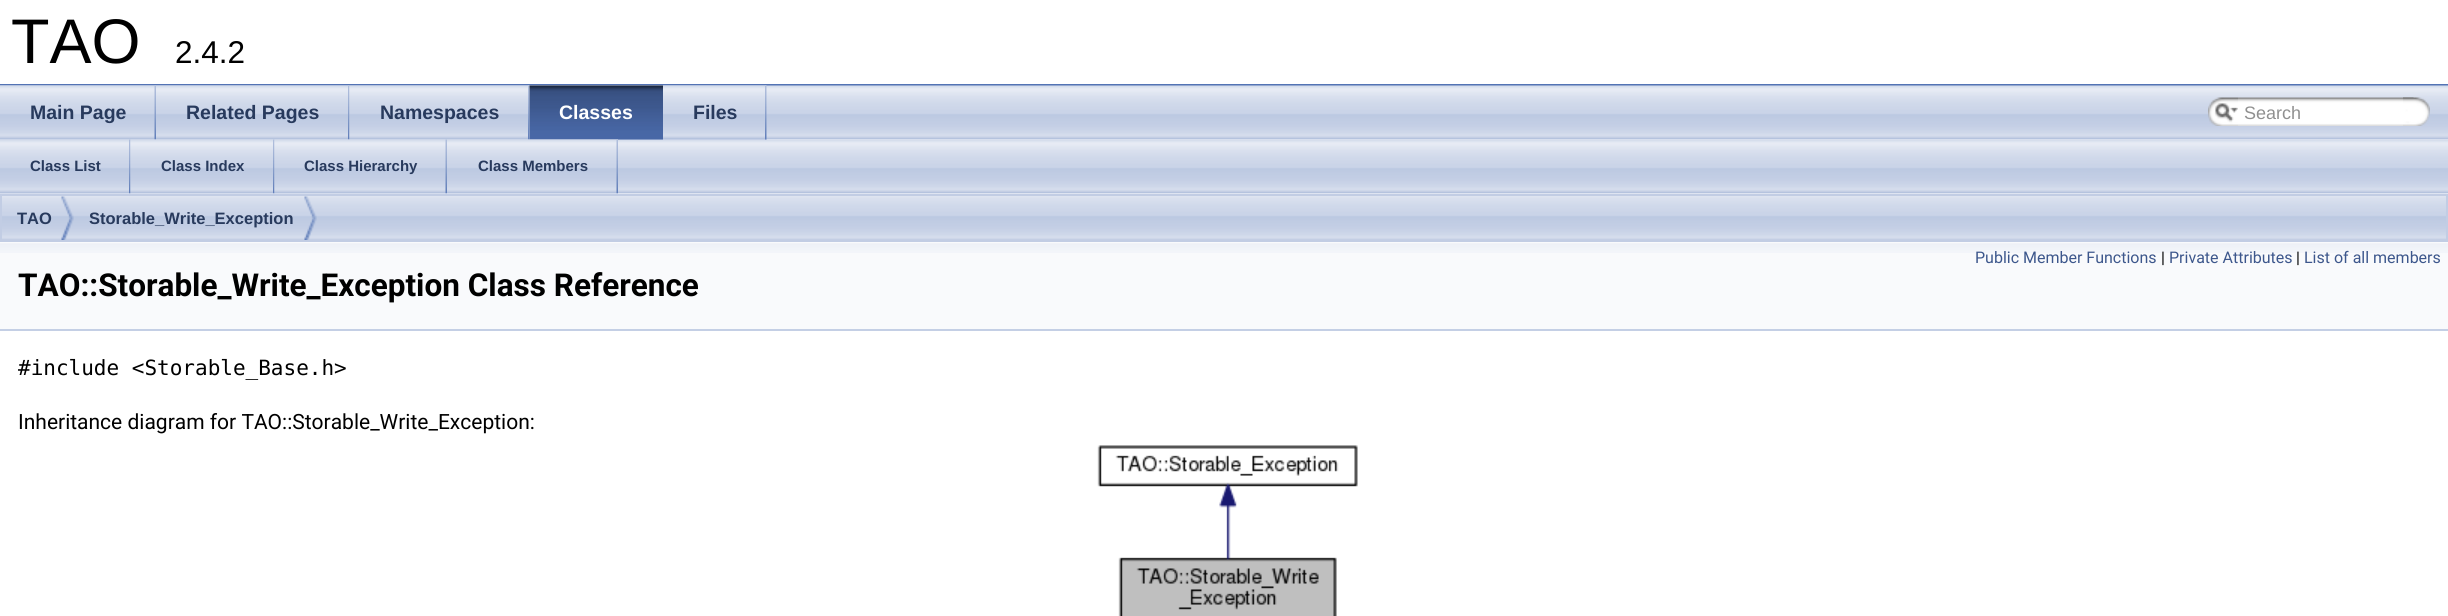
#include <cairo.h>
#include <math.h>
#include <stddef.h>


static void rgb(cairo_t *cr, int r, int g, int b)
{
	cairo_set_source_rgb(cr, r / 255.0, g / 255.0, b / 255.0);
}

static void face(cairo_t *cr, const char *family, double size, int italic, int bold)
{
	cairo_select_font_face(cr, family, italic ? CAIRO_FONT_SLANT_ITALIC : CAIRO_FONT_SLANT_NORMAL,
		bold ? CAIRO_FONT_WEIGHT_BOLD : CAIRO_FONT_WEIGHT_NORMAL);
	cairo_set_font_size(cr, size);
}

static void label(cairo_t *cr, double x, double y, const char *s)
{
	cairo_move_to(cr, x, y);
	cairo_show_text(cr, s);
}

static void rect(cairo_t *cr, double x, double y, double w, double h)
{
	cairo_rectangle(cr, x, y, w, h);
	cairo_fill(cr);
}

static void image(cairo_t *cr, const char *path, double x, double y, double w, double h)
{
	cairo_surface_t *image = cairo_image_surface_create_from_png(path);
	cairo_save(cr);
	cairo_set_source_surface(cr, image, x, y);
	cairo_rectangle(cr, x, y, w, h);
	cairo_fill(cr);
	cairo_restore(cr);
	cairo_surface_destroy(image);
}

static void draw(cairo_t *cr) {
	rgb(cr, 255, 255, 255);
	cairo_paint(cr);
	rgb(cr, 83, 115, 180);
	rect(cr, 0, 84, 2448, 2);
	face(cr, "Liberation Sans", 63, 0, 0);
	rgb(cr, 0, 0, 0);
	label(cr, 11, 63, "TAO");
	face(cr, "Liberation Sans", 31.5, 0, 0);
	label(cr, 175, 63, "2.4.2");
	image(cr, "image0.png", 0, 85, 2448, 55);
	image(cr, "image1.png", 0, 85, 156, 55);
	image(cr, "image2.png", 154, 86, 2, 54);
	face(cr, "Liberation Sans", 19.5, 0, 1);
	rgb(cr, 40, 58, 93);
	label(cr, 30, 119, "Main Page");
	image(cr, "image3.png", 156, 85, 194, 55);
	image(cr, "image4.png", 348, 86, 2, 54);
	label(cr, 186, 119, "Related Pages");
	image(cr, "image5.png", 349, 85, 181, 55);
	image(cr, "image4.png", 528, 86, 2, 54);
	label(cr, 380, 119, "Namespaces");
	image(cr, "image6.png", 529, 85, 134, 55);
	image(cr, "image7.png", 529, 85, 134, 55);
	rgb(cr, 255, 255, 255);
	label(cr, 559, 119, "Classes");
	image(cr, "image8.png", 663, 85, 104, 55);
	image(cr, "image4.png", 765, 86, 2, 54);
	rgb(cr, 40, 58, 93);
	label(cr, 693, 119, "Files");
	image(cr, "image9.png", 2208, 97, 30, 29);
	image(cr, "image10.png", 2215, 103, 23, 19);
	image(cr, "image11.png", 2238, 97, 176, 29);
	face(cr, "Liberation Sans", 18, 0, 0);
	rgb(cr, 144, 144, 144);
	label(cr, 2244, 119, "Search");
	image(cr, "image12.png", 2403, 97, 27, 29);
	image(cr, "image13.png", 0, 140, 2448, 54);
	image(cr, "image14.png", 0, 139, 131, 55);
	image(cr, "image15.png", 129, 139, 2, 55);
	face(cr, "Liberation Sans", 15, 0, 1);
	rgb(cr, 40, 58, 93);
	label(cr, 30, 171, "Class List");
	image(cr, "image16.png", 130, 139, 145, 55);
	image(cr, "image15.png", 273, 139, 2, 55);
	label(cr, 161, 171, "Class Index");
	image(cr, "image17.png", 274, 139, 173, 55);
	image(cr, "image18.png", 445, 139, 2, 55);
	label(cr, 304, 171, "Class Hierarchy");
	image(cr, "image19.png", 447, 139, 171, 55);
	image(cr, "image2.png", 616, 140, 2, 54);
	label(cr, 478, 171, "Class Members");
	image(cr, "image20.png", 0, 193, 2448, 47);
	cairo_rectangle(cr, 1, 195, 2446, 46);
	rgb(cr, 194, 205, 228);
	cairo_stroke(cr);
	image(cr, "image21.png", 61, 196, 13, 44);
	face(cr, "Liberation Sans", 16.5, 0, 1);
	rgb(cr, 40, 58, 93);
	label(cr, 17, 224, "TAO");
	image(cr, "image21.png", 304, 196, 13, 44);
	label(cr, 89, 224, "Storable_Write_Exception");
	rgb(cr, 249, 250, 252);
	rect(cr, 0, 242, 2448, 87);
	image(cr, "image22.png", 0, 243, 2448, 10);
	rgb(cr, 196, 207, 229);
	rect(cr, 0, 329, 2448, 2);
	face(cr, "Roboto", 16, 0, 0);
	rgb(cr, 61, 87, 140);
	label(cr, 1975, 263, "Public Member Functions");
	rgb(cr, 0, 0, 0);
	label(cr, 2161, 263, "|");
	rgb(cr, 61, 87, 140);
	label(cr, 2169, 263, "Private Attributes");
	rgb(cr, 0, 0, 0);
	label(cr, 2296, 263, "|");
	rgb(cr, 61, 87, 140);
	label(cr, 2304, 263, "List of all members");
	face(cr, "Roboto", 31.5, 0, 1);
	rgb(cr, 0, 0, 0);
	label(cr, 18, 296, "TAO::Storable_Write_Exception Class Reference");
	face(cr, "DejaVu Sans Mono", 21, 0, 0);
	label(cr, 18, 375, "#include <Storable_Base.h>");
	face(cr, "Roboto", 21, 0, 0);
	label(cr, 18, 429, "Inheritance diagram for TAO::Storable_Write_Exception:");
	image(cr, "image23.png", 1097, 445, 261, 171);
}

int main(void) {
	cairo_surface_t *surface = cairo_image_surface_create(CAIRO_FORMAT_RGB24, 2448, 616);
	cairo_t *cr = cairo_create(surface);
	cairo_font_options_t *options = cairo_font_options_create();
	cairo_font_options_set_hint_metrics(options, CAIRO_HINT_METRICS_OFF);
	cairo_font_options_set_hint_style(options, CAIRO_HINT_STYLE_NONE);
	cairo_set_font_options(cr, options);
	cairo_set_miter_limit(cr, 4);
	draw(cr);
	cairo_surface_write_to_png(surface, "render.png");
	cairo_font_options_destroy(options);
	cairo_destroy(cr);
	cairo_surface_destroy(surface);
	return 0;
}
